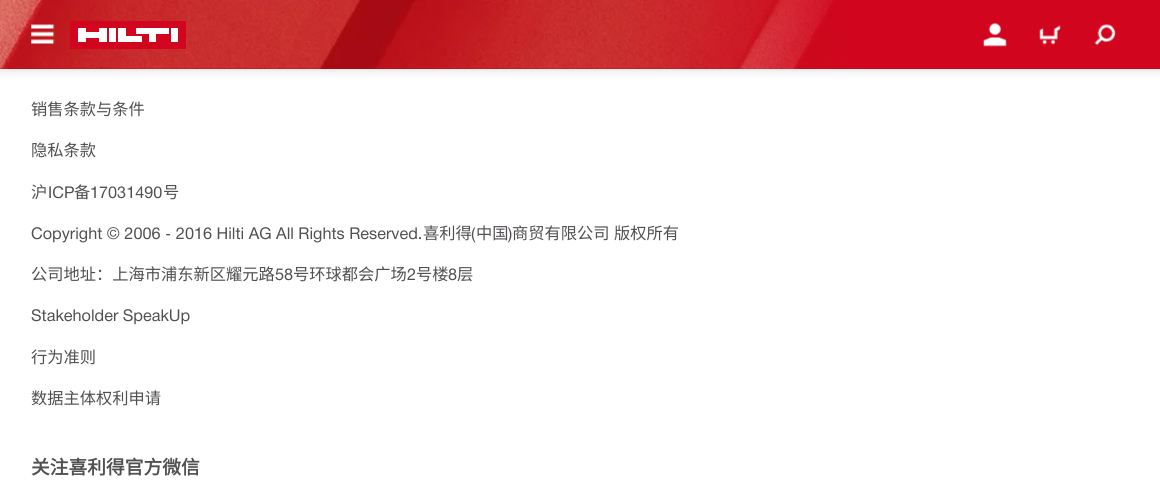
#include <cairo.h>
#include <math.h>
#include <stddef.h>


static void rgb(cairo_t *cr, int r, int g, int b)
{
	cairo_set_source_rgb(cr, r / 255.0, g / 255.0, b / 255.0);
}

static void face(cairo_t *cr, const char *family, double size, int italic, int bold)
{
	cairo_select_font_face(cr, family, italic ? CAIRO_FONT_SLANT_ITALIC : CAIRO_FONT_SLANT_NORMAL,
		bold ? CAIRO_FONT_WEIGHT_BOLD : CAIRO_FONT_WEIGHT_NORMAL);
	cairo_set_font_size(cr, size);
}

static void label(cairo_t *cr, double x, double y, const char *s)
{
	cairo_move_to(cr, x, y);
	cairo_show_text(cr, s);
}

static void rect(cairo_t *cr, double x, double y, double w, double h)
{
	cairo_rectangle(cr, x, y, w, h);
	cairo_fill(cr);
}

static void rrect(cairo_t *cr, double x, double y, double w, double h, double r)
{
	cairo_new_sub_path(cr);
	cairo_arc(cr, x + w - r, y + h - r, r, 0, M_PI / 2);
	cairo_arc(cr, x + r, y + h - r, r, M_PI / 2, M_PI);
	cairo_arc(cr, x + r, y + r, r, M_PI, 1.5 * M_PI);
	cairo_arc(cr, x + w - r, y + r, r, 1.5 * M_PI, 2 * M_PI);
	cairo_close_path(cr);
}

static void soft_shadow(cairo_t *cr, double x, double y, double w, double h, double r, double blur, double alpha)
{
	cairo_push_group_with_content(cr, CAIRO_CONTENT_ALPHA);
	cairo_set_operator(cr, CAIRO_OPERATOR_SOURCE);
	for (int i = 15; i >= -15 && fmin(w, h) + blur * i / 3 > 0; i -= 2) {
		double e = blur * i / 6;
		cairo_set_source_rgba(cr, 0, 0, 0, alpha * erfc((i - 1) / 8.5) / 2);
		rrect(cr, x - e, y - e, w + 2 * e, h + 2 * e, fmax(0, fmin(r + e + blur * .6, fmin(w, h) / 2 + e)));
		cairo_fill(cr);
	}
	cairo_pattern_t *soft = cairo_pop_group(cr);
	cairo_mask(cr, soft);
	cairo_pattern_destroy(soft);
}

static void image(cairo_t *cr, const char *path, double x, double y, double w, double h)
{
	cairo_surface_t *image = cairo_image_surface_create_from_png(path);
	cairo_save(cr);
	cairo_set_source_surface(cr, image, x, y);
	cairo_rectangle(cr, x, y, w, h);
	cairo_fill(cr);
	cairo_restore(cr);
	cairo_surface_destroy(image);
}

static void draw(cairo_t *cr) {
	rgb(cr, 255, 255, 255);
	cairo_paint(cr);
	rgb(cr, 0, 0, 0);
	soft_shadow(cr, -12, -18, 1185, 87, 0, 6, 0.15);
	rgb(cr, 210, 5, 30);
	rect(cr, 0, 0, 1160, 69);
	image(cr, "image0.png", 0, 0, 870, 69);
	image(cr, "image1.png", 31, 24, 24, 20);
	rect(cr, 70, 21, 116, 28);
	rgb(cr, 255, 255, 255);
	cairo_new_path(cr);
	cairo_move_to(cr, 116, 42);
	cairo_line_to(cr, 109, 42);
	cairo_line_to(cr, 109, 28);
	cairo_line_to(cr, 116, 28);
	cairo_close_path(cr);
	cairo_move_to(cr, 178, 28);
	cairo_line_to(cr, 171, 28);
	cairo_line_to(cr, 171, 42);
	cairo_line_to(cr, 178, 42);
	cairo_close_path(cr);
	cairo_move_to(cr, 78, 42);
	cairo_line_to(cr, 86, 42);
	cairo_line_to(cr, 86, 38);
	cairo_line_to(cr, 99, 38);
	cairo_line_to(cr, 99, 42);
	cairo_line_to(cr, 107, 42);
	cairo_line_to(cr, 107, 28);
	cairo_line_to(cr, 99, 28);
	cairo_line_to(cr, 99, 32);
	cairo_line_to(cr, 86, 32);
	cairo_line_to(cr, 86, 28);
	cairo_line_to(cr, 78, 28);
	cairo_close_path(cr);
	cairo_move_to(cr, 118, 42);
	cairo_line_to(cr, 142, 42);
	cairo_line_to(cr, 142, 36);
	cairo_line_to(cr, 126, 36);
	cairo_line_to(cr, 126, 28);
	cairo_line_to(cr, 118, 28);
	cairo_close_path(cr);
	cairo_move_to(cr, 136, 34);
	cairo_line_to(cr, 149, 34);
	cairo_line_to(cr, 149, 42);
	cairo_line_to(cr, 156, 42);
	cairo_line_to(cr, 156, 34);
	cairo_line_to(cr, 169, 34);
	cairo_line_to(cr, 169, 28);
	cairo_line_to(cr, 136, 28);
	cairo_close_path(cr);
	cairo_fill(cr);
	image(cr, "image2.png", 983, 23, 24, 24);
	image(cr, "image3.png", 1039, 25, 22, 20);
	image(cr, "image4.png", 1094, 24, 22, 22);
	face(cr, "Noto Sans CJK SC", 16.25, 0, 0);
	rgb(cr, 82, 79, 83);
	label(cr, 31, 115, "销售条款与条件");
	label(cr, 31, 156, "隐私条款");
	label(cr, 31, 198, "沪");
	face(cr, "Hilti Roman", 16.25, 0, 0);
	label(cr, 48, 198, "ICP");
	face(cr, "Noto Sans CJK SC", 16.25, 0, 0);
	label(cr, 74, 198, "备");
	face(cr, "Hilti Roman", 16.25, 0, 0);
	label(cr, 90, 198, "17031490");
	face(cr, "Noto Sans CJK SC", 16.25, 0, 0);
	label(cr, 163, 198, "号");
	face(cr, "Hilti Roman", 16.25, 0, 0);
	label(cr, 31, 239, "Copyright © 2006 - 2016 Hilti AG All Rights Reserved.");
	face(cr, "Noto Sans CJK SC", 16.25, 0, 0);
	label(cr, 423, 239, "喜利得");
	face(cr, "Hilti Roman", 16.25, 0, 0);
	label(cr, 471, 239, "(");
	face(cr, "Noto Sans CJK SC", 16.25, 0, 0);
	label(cr, 476, 239, "中国");
	face(cr, "Hilti Roman", 16.25, 0, 0);
	label(cr, 508, 239, ")");
	face(cr, "Noto Sans CJK SC", 16.25, 0, 0);
	label(cr, 512, 239, "商贸有限公司");
	label(cr, 614, 239, "版权所有");
	label(cr, 31, 280, "公司地址：上海市浦东新区耀元路");
	face(cr, "Hilti Roman", 16.25, 0, 0);
	label(cr, 275, 280, "58");
	face(cr, "Noto Sans CJK SC", 16.25, 0, 0);
	label(cr, 293, 280, "号环球都会广场");
	face(cr, "Hilti Roman", 16.25, 0, 0);
	label(cr, 407, 280, "2");
	face(cr, "Noto Sans CJK SC", 16.25, 0, 0);
	label(cr, 416, 280, "号楼");
	face(cr, "Hilti Roman", 16.25, 0, 0);
	label(cr, 448, 280, "8");
	face(cr, "Noto Sans CJK SC", 16.25, 0, 0);
	label(cr, 457, 280, "层");
	face(cr, "Hilti Roman", 16.25, 0, 0);
	label(cr, 31, 321, "Stakeholder SpeakUp");
	face(cr, "Noto Sans CJK SC", 16.25, 0, 0);
	label(cr, 31, 363, "行为准则");
	label(cr, 31, 404, "数据主体权利申请");
	face(cr, "Noto Sans CJK SC", 18.75, 0, 1);
	label(cr, 31, 474, "关注喜利得官方微信");
}

int main(void) {
	cairo_surface_t *surface = cairo_image_surface_create(CAIRO_FORMAT_RGB24, 1160, 486);
	cairo_t *cr = cairo_create(surface);
	cairo_font_options_t *options = cairo_font_options_create();
	cairo_font_options_set_hint_metrics(options, CAIRO_HINT_METRICS_OFF);
	cairo_font_options_set_hint_style(options, CAIRO_HINT_STYLE_NONE);
	cairo_set_font_options(cr, options);
	cairo_set_miter_limit(cr, 4);
	draw(cr);
	cairo_surface_write_to_png(surface, "render.png");
	cairo_font_options_destroy(options);
	cairo_destroy(cr);
	cairo_surface_destroy(surface);
	return 0;
}
